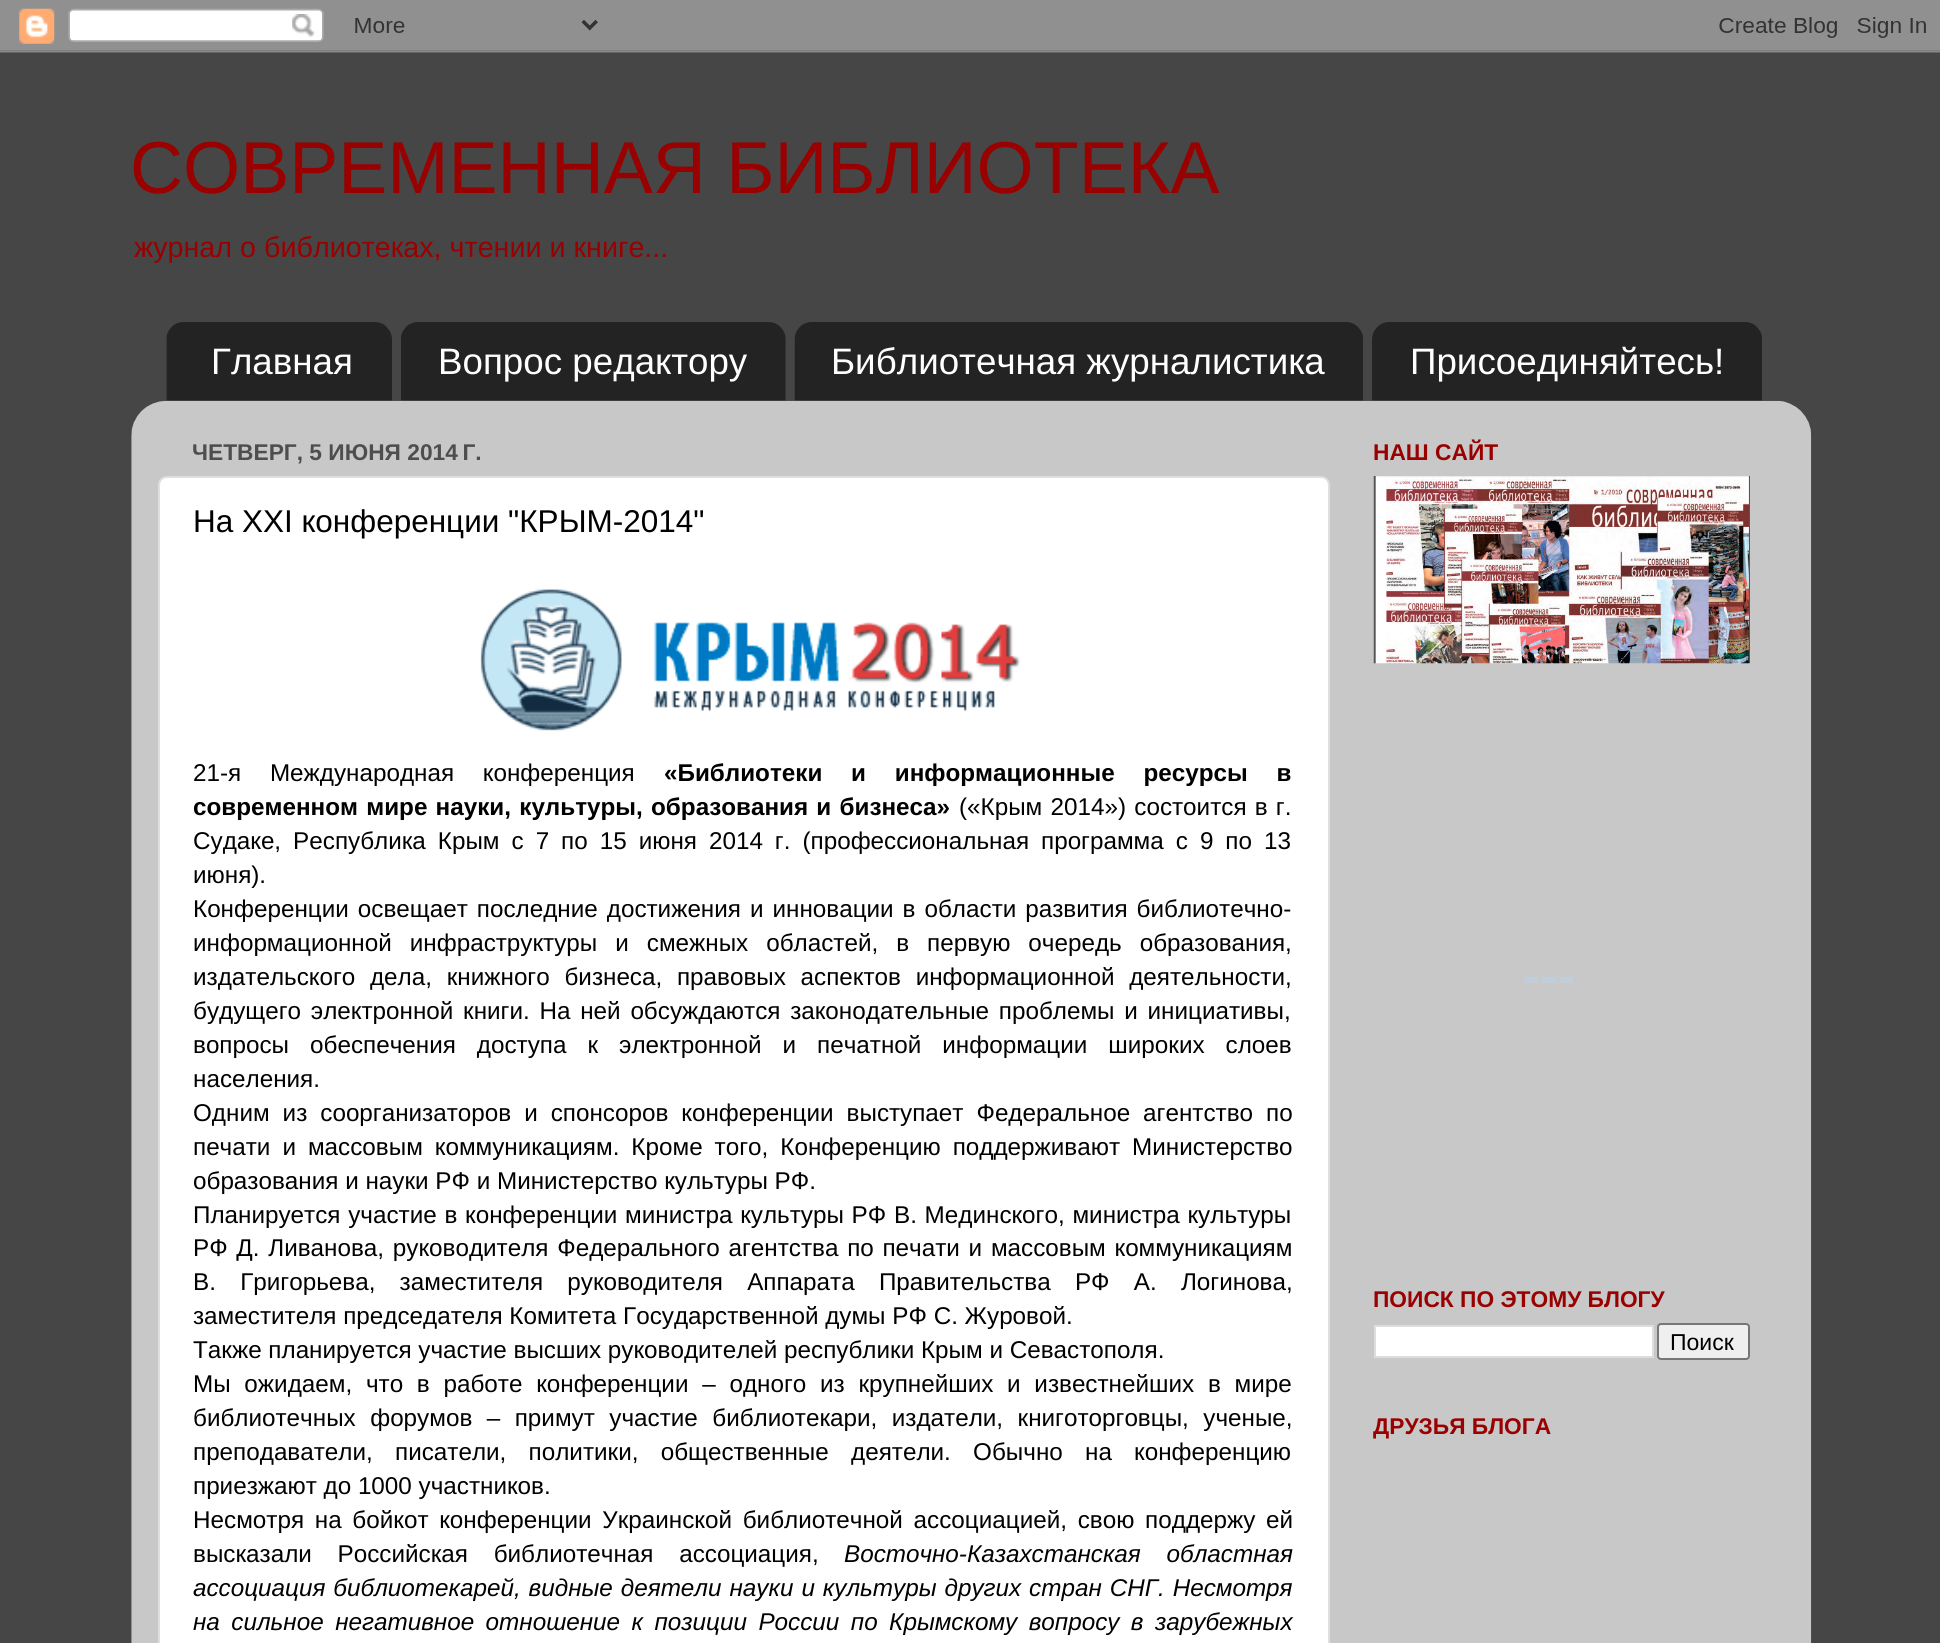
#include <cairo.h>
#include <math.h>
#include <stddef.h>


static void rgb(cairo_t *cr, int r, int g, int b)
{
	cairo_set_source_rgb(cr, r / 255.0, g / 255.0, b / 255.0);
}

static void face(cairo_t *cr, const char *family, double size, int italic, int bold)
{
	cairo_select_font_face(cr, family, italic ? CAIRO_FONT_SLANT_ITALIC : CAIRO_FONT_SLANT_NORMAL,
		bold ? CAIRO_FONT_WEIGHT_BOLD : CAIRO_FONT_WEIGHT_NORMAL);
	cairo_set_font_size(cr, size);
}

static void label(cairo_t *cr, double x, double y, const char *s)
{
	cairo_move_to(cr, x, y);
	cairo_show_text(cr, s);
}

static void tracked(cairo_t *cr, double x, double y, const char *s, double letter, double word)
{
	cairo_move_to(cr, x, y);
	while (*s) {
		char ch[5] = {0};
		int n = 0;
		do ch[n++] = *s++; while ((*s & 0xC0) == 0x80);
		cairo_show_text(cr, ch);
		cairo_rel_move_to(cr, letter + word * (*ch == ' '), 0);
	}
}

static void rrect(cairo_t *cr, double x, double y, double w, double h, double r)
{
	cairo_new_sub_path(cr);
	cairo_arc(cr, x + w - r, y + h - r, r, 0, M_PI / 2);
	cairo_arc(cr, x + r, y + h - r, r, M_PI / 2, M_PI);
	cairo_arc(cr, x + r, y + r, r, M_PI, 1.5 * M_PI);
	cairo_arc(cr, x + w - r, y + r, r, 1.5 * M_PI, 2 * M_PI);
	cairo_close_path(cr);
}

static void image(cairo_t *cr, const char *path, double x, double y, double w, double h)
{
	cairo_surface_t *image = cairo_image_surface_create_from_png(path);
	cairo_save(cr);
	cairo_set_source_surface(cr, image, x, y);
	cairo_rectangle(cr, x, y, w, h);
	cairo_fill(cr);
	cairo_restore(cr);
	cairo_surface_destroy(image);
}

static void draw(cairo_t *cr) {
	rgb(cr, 70, 70, 70);
	cairo_paint(cr);
	image(cr, "image0.png", 0, 0, 1940, 53);
	face(cr, "Liberation Sans", 73.5, 0, 0);
	rgb(cr, 153, 0, 0);
	label(cr, 130, 193, "СОВРЕМЕННАЯ БИБЛИОТЕКА");
	face(cr, "Liberation Sans", 28.7, 0, 0);
	label(cr, 134, 257, "журнал о библиотеках, чтении и книге...");
	image(cr, "image1.png", 166, 322, 226, 79);
	face(cr, "Liberation Sans", 36.75, 0, 0);
	rgb(cr, 255, 255, 255);
	label(cr, 211, 374, "Главная");
	image(cr, "image2.png", 401, 322, 385, 79);
	label(cr, 438, 374, "Вопрос редактору");
	image(cr, "image3.png", 794, 322, 569, 79);
	label(cr, 831, 374, "Библиотечная журналистика");
	image(cr, "image4.png", 1372, 322, 390, 79);
	label(cr, 1410, 374, "Присоединяйтесь!");
	image(cr, "image5.png", 131, 400, 1681, 1243);
	face(cr, "Liberation Sans", 22.75, 0, 1);
	rgb(cr, 78, 78, 78);
	label(cr, 192, 460, "ЧЕТВЕРГ, 5 ИЮНЯ 2014 Г.");
	rgb(cr, 255, 255, 255);
	rrect(cr, 159, 477, 1170, 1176, 8);
	cairo_fill_preserve(cr);
	rgb(cr, 223, 223, 223);
	cairo_stroke(cr);
	face(cr, "Liberation Sans", 31.5, 0, 0);
	rgb(cr, 0, 0, 0);
	label(cr, 193, 532, "На XXI конференции \"КРЫМ-2014\"");
	image(cr, "image6.png", 480, 589, 541, 142);
	face(cr, "Liberation Sans", 24.25, 0, 0);
	tracked(cr, 193, 781, "21-я Международная конференция", 0, 22);
	face(cr, "Liberation Sans", 24.25, 0, 1);
	tracked(cr, 664, 781, "«Библиотеки и информационные ресурсы в", 0, 22);
	tracked(cr, 193, 815, "современном мире науки, культуры, образования и бизнеса»", 0, 1.5);
	face(cr, "Liberation Sans", 24.25, 0, 0);
	tracked(cr, 959, 815, "(«Крым 2014») состоится в г.", 0, 1.5);
	tracked(cr, 193, 849, "Судаке, Республика Крым с 7 по 15 июня 2014 г. (профессиональная программа с 9 по 13", 0, 5.25);
	label(cr, 193, 883, "июня).");
	tracked(cr, 193, 917, "Конференции освещает последние достижения и инновации в области развития библиотечно-", 0, 2.25);
	tracked(cr, 193, 951, "информационной инфраструктуры и смежных областей, в первую очередь образования,", 0, 11.25);
	tracked(cr, 193, 985, "издательского дела, книжного бизнеса, правовых аспектов информационной деятельности,", 0, 8);
	tracked(cr, 193, 1019, "будущего электронной книги. На ней обсуждаются законодательные проблемы и инициативы,", 0, 3);
	tracked(cr, 193, 1053, "вопросы обеспечения доступа к электронной и печатной информации широких слоев", 0, 14.25);
	label(cr, 193, 1087, "населения.");
	tracked(cr, 193, 1121, "Одним из соорганизаторов и спонсоров конференции выступает Федеральное агентство по", 0, 6.25);
	tracked(cr, 193, 1155, "печати и массовым коммуникациям. Кроме того, Конференцию поддерживают Министерство", 0, 5.25);
	label(cr, 193, 1189, "образования и науки РФ и Министерство культуры РФ.");
	tracked(cr, 193, 1223, "Планируется участие в конференции министра культуры РФ В. Мединского, министра культуры", 0, 1);
	tracked(cr, 193, 1256, "РФ Д. Ливанова, руководителя Федерального агентства по печати и массовым коммуникациям", 0, 2);
	tracked(cr, 193, 1290, "В. Григорьева, заместителя руководителя Аппарата Правительства РФ А. Логинова,", 0, 17.5);
	label(cr, 193, 1324, "заместителя председателя Комитета Государственной думы РФ С. Журовой.");
	label(cr, 193, 1358, "Также планируется участие высших руководителей республики Крым и Севастополя.");
	tracked(cr, 193, 1392, "Мы ожидаем, что в работе конференции – одного из крупнейших и известнейших в мире", 0, 7);
	tracked(cr, 193, 1426, "библиотечных форумов – примут участие библиотекари, издатели, книготорговцы, ученые,", 0, 7.75);
	tracked(cr, 193, 1460, "преподаватели, писатели, политики, общественные деятели. Обычно на конференцию", 0, 15.5);
	label(cr, 193, 1494, "приезжают до 1000 участников.");
	tracked(cr, 193, 1528, "Несмотря на бойкот конференции Украинской библиотечной ассоциацией, свою поддержу ей", 0, 4);
	tracked(cr, 193, 1562, "высказали Российская библиотечная ассоциация,", 0, 19);
	face(cr, "Liberation Sans", 24.25, 1, 0);
	tracked(cr, 844, 1562, "Восточно-Казахстанская областная", 0, 19);
	tracked(cr, 193, 1596, "ассоциация библиотекарей, видные деятели науки и культуры других стран СНГ. Несмотря", 0, 1.25);
	tracked(cr, 193, 1630, "на сильное негативное отношение к позиции России по Крымскому вопросу в зарубежных", 0, 4.75);
	face(cr, "Liberation Sans", 22.75, 0, 1);
	rgb(cr, 153, 0, 0);
	label(cr, 1373, 460, "НАШ САЙТ");
	image(cr, "image7.png", 1373, 476, 377, 188);
	image(cr, "image8.png", 1524, 976, 50, 8);
	label(cr, 1373, 1307, "ПОИСК ПО ЭТОМУ БЛОГУ");
	rgb(cr, 255, 255, 255);
	cairo_rectangle(cr, 1375, 1326, 278, 31);
	cairo_fill_preserve(cr);
	rgb(cr, 221, 221, 221);
	cairo_stroke(cr);
	rgb(cr, 239, 239, 239);
	rrect(cr, 1658, 1324, 91, 35, 3);
	cairo_fill_preserve(cr);
	rgb(cr, 118, 118, 118);
	cairo_stroke(cr);
	face(cr, "Liberation Sans", 23, 0, 0);
	rgb(cr, 0, 0, 0);
	label(cr, 1670, 1350, "Поиск");
	face(cr, "Liberation Sans", 22.75, 0, 1);
	rgb(cr, 153, 0, 0);
	label(cr, 1373, 1434, "ДРУЗЬЯ БЛОГА");
}

int main(void) {
	cairo_surface_t *surface = cairo_image_surface_create(CAIRO_FORMAT_RGB24, 1940, 1643);
	cairo_t *cr = cairo_create(surface);
	cairo_font_options_t *options = cairo_font_options_create();
	cairo_font_options_set_hint_metrics(options, CAIRO_HINT_METRICS_OFF);
	cairo_font_options_set_hint_style(options, CAIRO_HINT_STYLE_NONE);
	cairo_set_font_options(cr, options);
	cairo_set_miter_limit(cr, 4);
	draw(cr);
	cairo_surface_write_to_png(surface, "render.png");
	cairo_font_options_destroy(options);
	cairo_destroy(cr);
	cairo_surface_destroy(surface);
	return 0;
}
